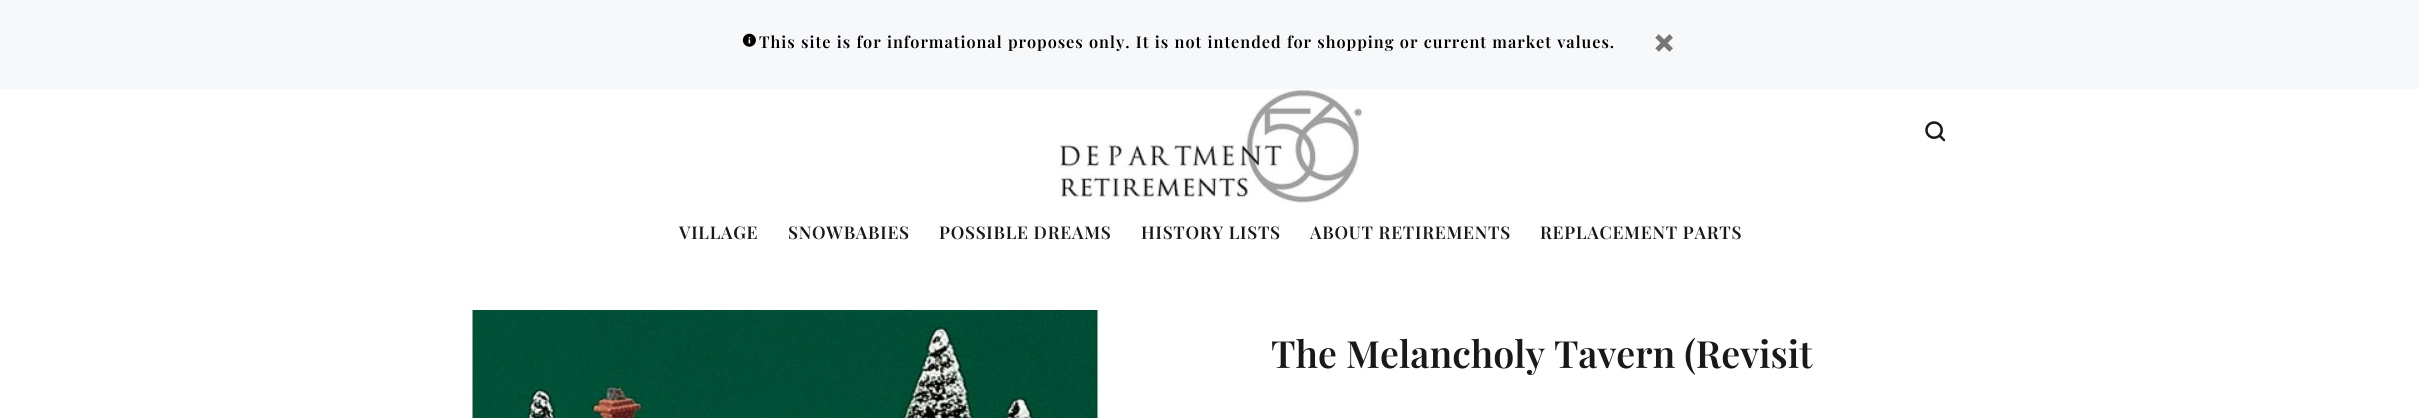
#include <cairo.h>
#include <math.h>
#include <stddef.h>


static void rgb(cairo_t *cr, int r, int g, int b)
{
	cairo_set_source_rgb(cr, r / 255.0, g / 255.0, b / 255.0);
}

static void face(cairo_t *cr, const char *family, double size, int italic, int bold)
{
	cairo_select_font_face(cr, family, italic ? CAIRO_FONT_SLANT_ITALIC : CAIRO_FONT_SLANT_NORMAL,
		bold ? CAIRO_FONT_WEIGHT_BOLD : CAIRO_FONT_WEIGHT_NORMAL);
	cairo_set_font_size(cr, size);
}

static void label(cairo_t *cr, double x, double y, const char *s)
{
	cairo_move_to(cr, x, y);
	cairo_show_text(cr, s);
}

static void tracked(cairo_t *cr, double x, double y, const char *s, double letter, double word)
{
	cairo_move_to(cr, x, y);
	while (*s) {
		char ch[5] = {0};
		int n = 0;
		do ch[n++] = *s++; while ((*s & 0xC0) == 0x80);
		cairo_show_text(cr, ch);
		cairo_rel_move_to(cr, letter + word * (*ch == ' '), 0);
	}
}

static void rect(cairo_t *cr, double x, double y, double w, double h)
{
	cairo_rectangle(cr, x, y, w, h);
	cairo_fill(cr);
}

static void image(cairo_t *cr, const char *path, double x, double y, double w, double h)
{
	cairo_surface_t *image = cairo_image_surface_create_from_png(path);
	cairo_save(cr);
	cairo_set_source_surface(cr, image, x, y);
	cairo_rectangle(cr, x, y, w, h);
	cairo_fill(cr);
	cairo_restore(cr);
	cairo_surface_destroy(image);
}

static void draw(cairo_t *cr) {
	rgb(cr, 255, 255, 255);
	cairo_paint(cr);
	rgb(cr, 247, 248, 250);
	rect(cr, 0, 0, 2419, 89);
	image(cr, "image0.png", 742, 33, 14, 14);
	face(cr, "Playfair Display SemiBold", 16.25, 0, 0);
	rgb(cr, 0, 0, 0);
	tracked(cr, 759, 48, "This site is for informational proposes only. It is not intended for shopping or current market values.", 0.98, 0.5);
	image(cr, "image1.png", 1655, 34, 18, 18);
	image(cr, "image2.png", 1059, 89, 304, 114);
	image(cr, "image3.png", 1925, 121, 21, 21);
	face(cr, "Playfair Display SemiBold", 17.5, 0, 0);
	rgb(cr, 25, 25, 25);
	tracked(cr, 679, 239, "VILLAGE", 0.75, 0);
	tracked(cr, 788, 239, "SNOWBABIES", 0.75, 0);
	tracked(cr, 939, 239, "POSSIBLE DREAMS", 0.75, 0);
	tracked(cr, 1141, 239, "HISTORY LISTS", 0.75, 0);
	tracked(cr, 1310, 239, "ABOUT RETIREMENTS", 0.75, 0);
	tracked(cr, 1540, 239, "REPLACEMENT PARTS", 0.75, 0);
	image(cr, "image4.png", 472, 310, 626, 108);
	face(cr, "Playfair Display SemiBold", 37.5, 0, 0);
	label(cr, 1271, 368, "The Melancholy Tavern (Revisit");
}

int main(void) {
	cairo_surface_t *surface = cairo_image_surface_create(CAIRO_FORMAT_RGB24, 2419, 418);
	cairo_t *cr = cairo_create(surface);
	cairo_font_options_t *options = cairo_font_options_create();
	cairo_font_options_set_hint_metrics(options, CAIRO_HINT_METRICS_OFF);
	cairo_font_options_set_hint_style(options, CAIRO_HINT_STYLE_NONE);
	cairo_set_font_options(cr, options);
	cairo_set_miter_limit(cr, 4);
	draw(cr);
	cairo_surface_write_to_png(surface, "render.png");
	cairo_font_options_destroy(options);
	cairo_destroy(cr);
	cairo_surface_destroy(surface);
	return 0;
}
